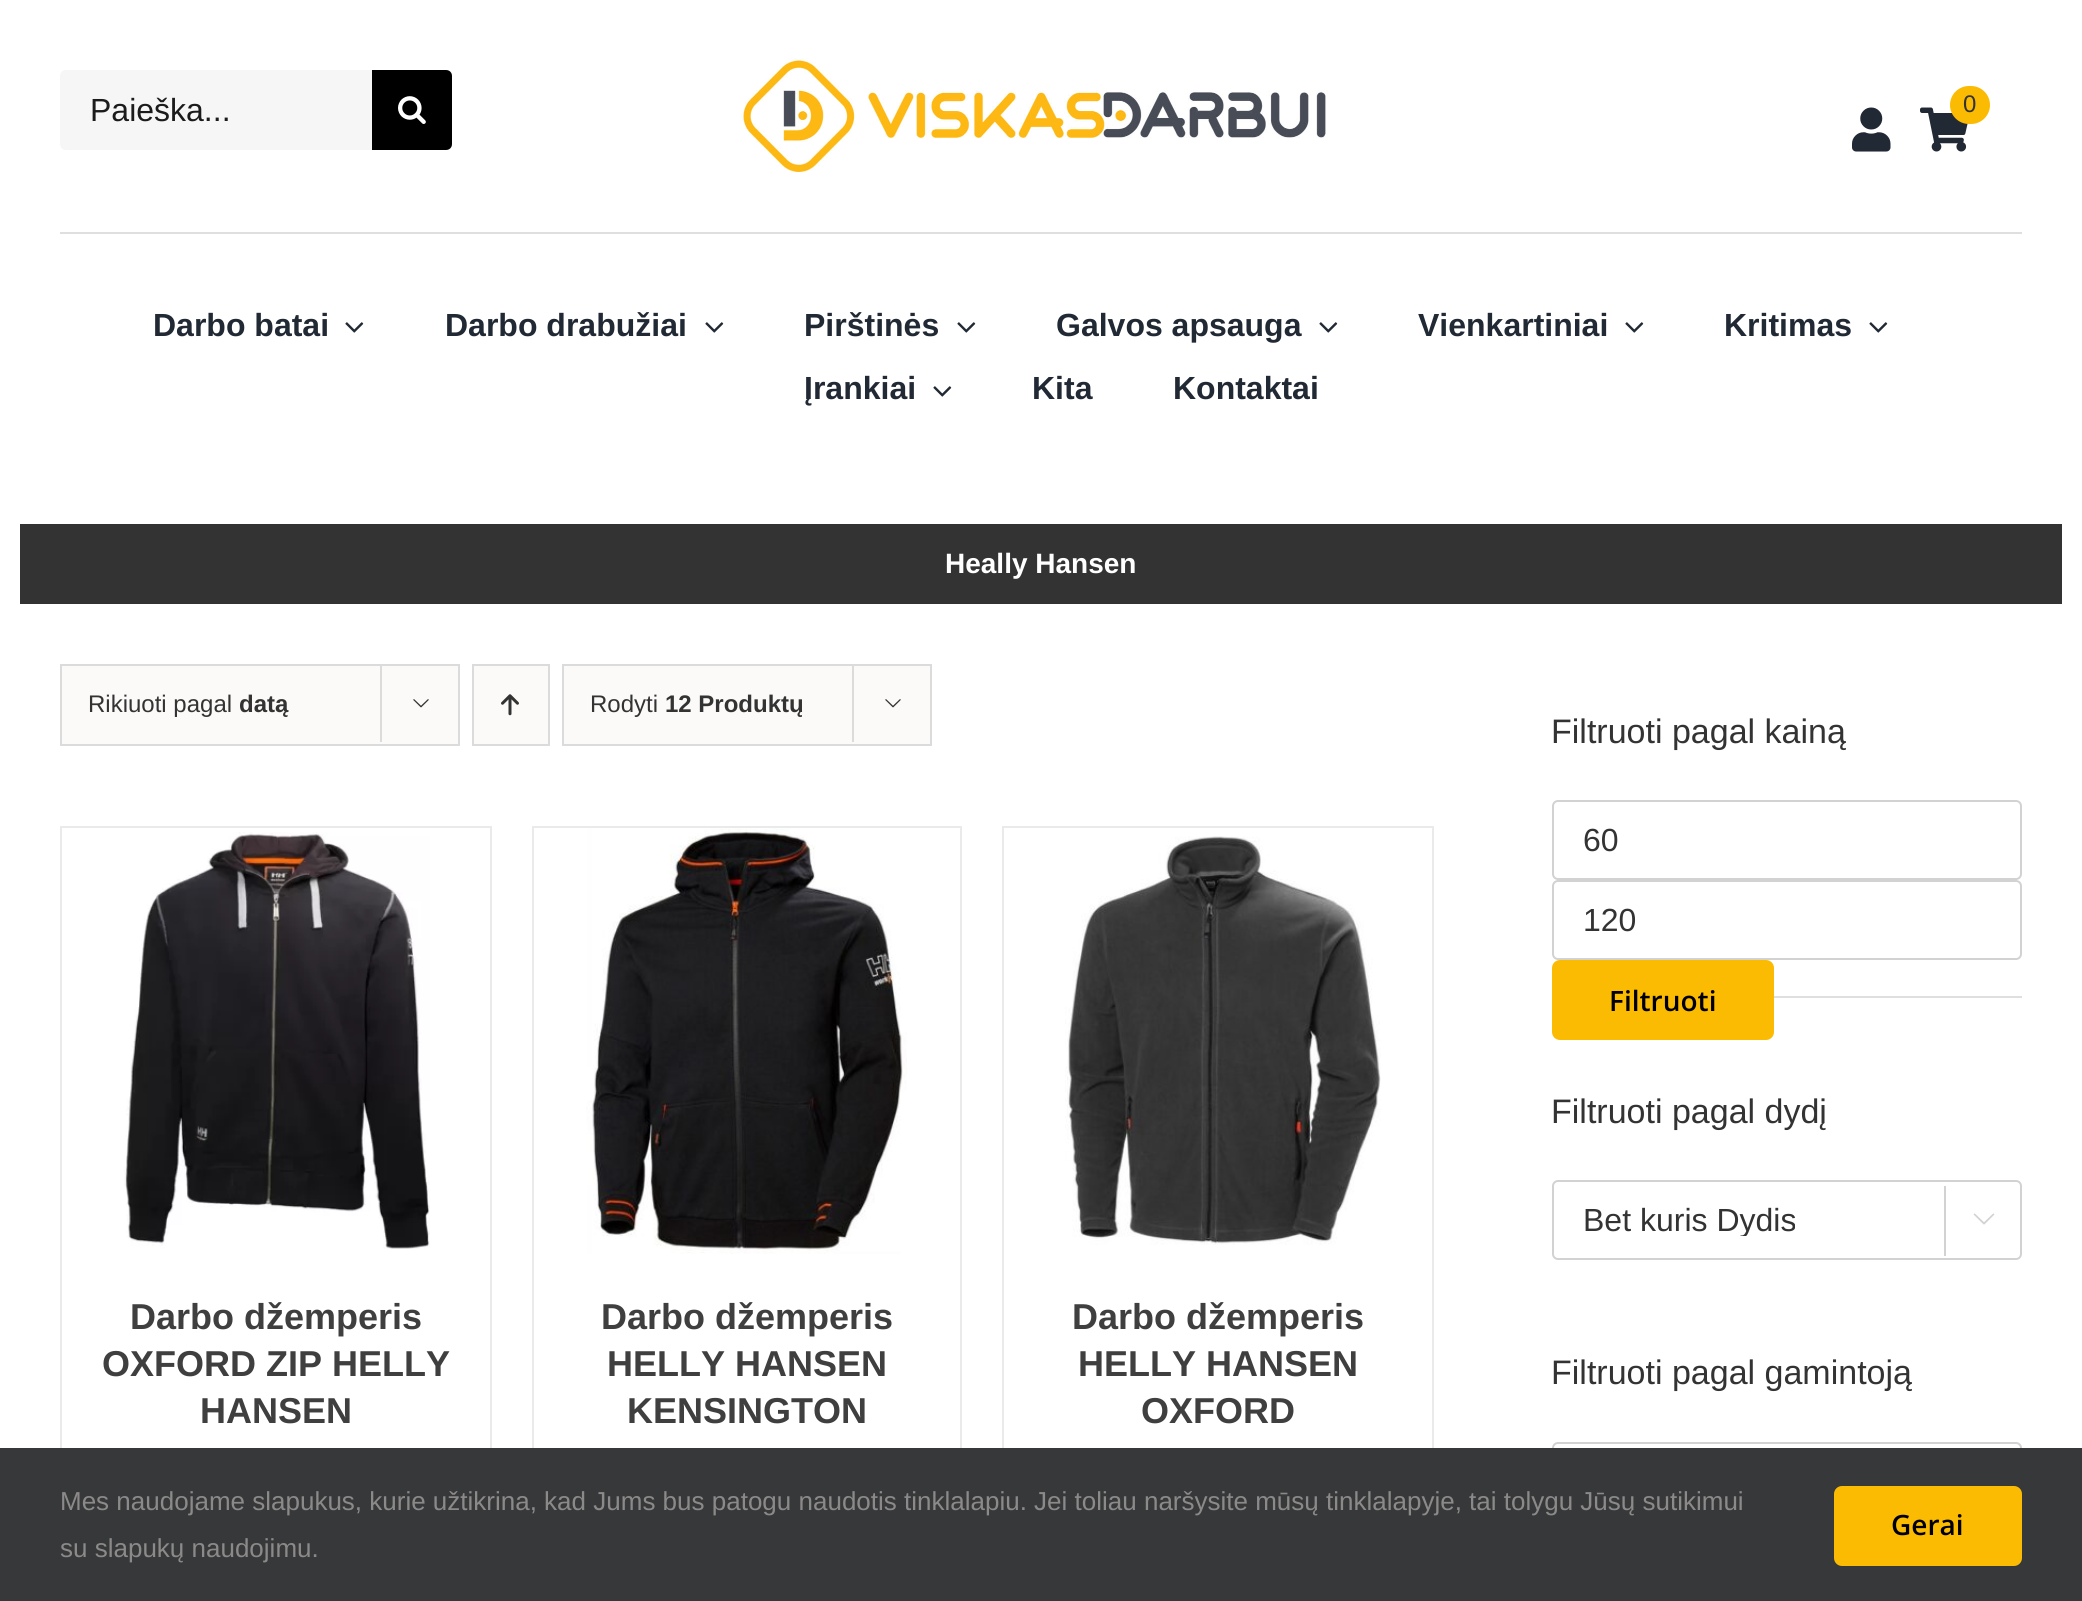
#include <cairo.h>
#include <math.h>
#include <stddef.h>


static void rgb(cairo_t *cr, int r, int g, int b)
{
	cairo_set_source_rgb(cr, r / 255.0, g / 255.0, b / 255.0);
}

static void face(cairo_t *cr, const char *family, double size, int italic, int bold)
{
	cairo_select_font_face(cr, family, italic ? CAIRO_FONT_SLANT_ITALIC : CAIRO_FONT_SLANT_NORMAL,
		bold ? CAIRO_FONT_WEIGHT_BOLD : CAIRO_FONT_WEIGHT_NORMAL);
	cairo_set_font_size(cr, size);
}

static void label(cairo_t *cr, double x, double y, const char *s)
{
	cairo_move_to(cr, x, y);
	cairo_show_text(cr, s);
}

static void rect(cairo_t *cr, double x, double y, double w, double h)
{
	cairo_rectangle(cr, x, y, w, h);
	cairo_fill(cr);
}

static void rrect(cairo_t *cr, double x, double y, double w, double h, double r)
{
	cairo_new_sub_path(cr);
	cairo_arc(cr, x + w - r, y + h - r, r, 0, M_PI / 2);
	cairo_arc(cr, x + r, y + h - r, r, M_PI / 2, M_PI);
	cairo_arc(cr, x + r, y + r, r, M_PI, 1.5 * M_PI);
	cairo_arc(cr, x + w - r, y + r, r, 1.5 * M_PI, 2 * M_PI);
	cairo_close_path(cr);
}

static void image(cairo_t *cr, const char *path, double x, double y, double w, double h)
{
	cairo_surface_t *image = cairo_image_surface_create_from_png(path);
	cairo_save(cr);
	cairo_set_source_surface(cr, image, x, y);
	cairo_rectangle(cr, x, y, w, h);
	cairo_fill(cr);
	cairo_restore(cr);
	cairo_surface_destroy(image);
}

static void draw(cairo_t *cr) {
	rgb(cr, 255, 255, 255);
	cairo_paint(cr);
	rgb(cr, 246, 246, 246);
	cairo_new_path(cr);
	cairo_move_to(cr, 66, 70);
	cairo_line_to(cr, 372, 70);
	cairo_line_to(cr, 372, 150);
	cairo_line_to(cr, 66, 150);
	cairo_curve_to(cr, 62.5, 150, 60, 147.5, 60, 144);
	cairo_line_to(cr, 60, 76);
	cairo_curve_to(cr, 60, 72.5, 62.5, 70, 66, 70);
	cairo_close_path(cr);
	cairo_fill(cr);
	face(cr, "Liberation Sans", 32, 0, 0);
	rgb(cr, 27, 27, 27);
	label(cr, 90, 121, "Paieška...");
	rgb(cr, 0, 0, 0);
	cairo_new_path(cr);
	cairo_move_to(cr, 372, 70);
	cairo_line_to(cr, 446, 70);
	cairo_curve_to(cr, 449.5, 70, 452, 72.5, 452, 76);
	cairo_line_to(cr, 452, 144);
	cairo_curve_to(cr, 452, 147.5, 449.5, 150, 446, 150);
	cairo_line_to(cr, 372, 150);
	cairo_close_path(cr);
	cairo_fill(cr);
	image(cr, "image0.png", 398, 96, 28, 28);
	image(cr, "image1.png", 740, 58, 588, 114);
	image(cr, "image2.png", 1920, 107, 48, 45);
	rgb(cr, 251, 187, 3);
	rrect(cr, 1951, 87, 38, 36, 18);
	cairo_fill_preserve(cr);
	cairo_stroke(cr);
	face(cr, "Liberation Sans", 24, 0, 0);
	rgb(cr, 51, 51, 51);
	label(cr, 1963, 112, "0");
	image(cr, "image3.png", 1852, 107, 39, 45);
	rgb(cr, 224, 222, 222);
	rect(cr, 60, 232, 1962, 2);
	face(cr, "Liberation Sans", 32, 0, 1);
	rgb(cr, 33, 41, 52);
	label(cr, 153, 336, "Darbo batai");
	image(cr, "image4.png", 345, 322, 19, 11);
	label(cr, 445, 336, "Darbo drabužiai");
	image(cr, "image4.png", 705, 322, 19, 11);
	label(cr, 804, 336, "Pirštinės");
	image(cr, "image4.png", 957, 322, 19, 11);
	label(cr, 1056, 336, "Galvos apsauga");
	image(cr, "image4.png", 1319, 322, 19, 11);
	label(cr, 1418, 336, "Vienkartiniai");
	image(cr, "image4.png", 1625, 322, 19, 11);
	label(cr, 1724, 336, "Kritimas");
	image(cr, "image4.png", 1869, 322, 19, 11);
	label(cr, 804, 399, "Įrankiai");
	image(cr, "image4.png", 933, 386, 19, 11);
	label(cr, 1032, 399, "Kita");
	label(cr, 1173, 399, "Kontaktai");
	rgb(cr, 51, 51, 51);
	rect(cr, 20, 524, 2042, 80);
	face(cr, "Liberation Sans", 28, 0, 1);
	rgb(cr, 255, 255, 255);
	label(cr, 945, 573, "Heally Hansen");
	rgb(cr, 251, 250, 249);
	cairo_rectangle(cr, 61, 665, 398, 80);
	cairo_fill_preserve(cr);
	rgb(cr, 219, 219, 219);
	cairo_stroke(cr);
	face(cr, "Liberation Sans", 24, 0, 0);
	rgb(cr, 51, 51, 51);
	label(cr, 88, 712, "Rikiuoti pagal");
	face(cr, "Liberation Sans", 24, 0, 1);
	label(cr, 239, 712, "datą");
	rgb(cr, 219, 219, 219);
	rect(cr, 380, 664, 2, 78);
	image(cr, "image5.png", 413, 699, 16, 9);
	rgb(cr, 251, 250, 249);
	cairo_rectangle(cr, 473, 665, 76, 80);
	cairo_fill_preserve(cr);
	rgb(cr, 219, 219, 219);
	cairo_stroke(cr);
	image(cr, "image6.png", 501, 694, 18, 22);
	rgb(cr, 251, 250, 249);
	cairo_rectangle(cr, 563, 665, 368, 80);
	cairo_fill_preserve(cr);
	rgb(cr, 219, 219, 219);
	cairo_stroke(cr);
	face(cr, "Liberation Sans", 24, 0, 0);
	rgb(cr, 51, 51, 51);
	label(cr, 590, 712, "Rodyti");
	face(cr, "Liberation Sans", 24, 0, 1);
	label(cr, 665, 712, "12 Produktų");
	rgb(cr, 219, 219, 219);
	rect(cr, 852, 664, 2, 78);
	image(cr, "image5.png", 885, 699, 16, 9);
	rgb(cr, 235, 234, 234);
	rect(cr, 60, 826, 432, 2);
	rect(cr, 490, 826, 2, 622);
	rect(cr, 60, 826, 2, 622);
	image(cr, "image7.png", 124, 832, 306, 417);
	face(cr, "Liberation Sans", 36, 0, 1);
	rgb(cr, 63, 63, 63);
	label(cr, 130, 1329, "Darbo džemperis");
	label(cr, 102, 1376, "OXFORD ZIP HELLY");
	label(cr, 200, 1423, "HANSEN");
	rgb(cr, 235, 234, 234);
	rect(cr, 532, 826, 430, 2);
	rect(cr, 960, 826, 2, 622);
	rect(cr, 532, 826, 2, 622);
	image(cr, "image8.png", 586, 828, 321, 426);
	rgb(cr, 63, 63, 63);
	label(cr, 601, 1329, "Darbo džemperis");
	label(cr, 607, 1376, "HELLY HANSEN");
	label(cr, 627, 1423, "KENSINGTON");
	rgb(cr, 235, 234, 234);
	rect(cr, 1002, 826, 432, 2);
	rect(cr, 1432, 826, 2, 622);
	rect(cr, 1002, 826, 2, 622);
	image(cr, "image9.png", 1065, 836, 316, 409);
	rgb(cr, 63, 63, 63);
	label(cr, 1072, 1329, "Darbo džemperis");
	label(cr, 1078, 1376, "HELLY HANSEN");
	label(cr, 1141, 1423, "OXFORD");
	face(cr, "Liberation Sans", 34, 0, 0);
	rgb(cr, 51, 51, 51);
	label(cr, 1551, 743, "Filtruoti pagal kainą");
	rgb(cr, 224, 222, 222);
	rect(cr, 1774, 996, 248, 2);
	rrect(cr, 1553, 801, 468, 78, 5);
	rgb(cr, 210, 210, 210);
	cairo_stroke(cr);
	face(cr, "Liberation Sans", 32, 0, 0);
	rgb(cr, 51, 51, 51);
	label(cr, 1583, 851, "60");
	rrect(cr, 1553, 881, 468, 78, 5);
	rgb(cr, 210, 210, 210);
	cairo_stroke(cr);
	rgb(cr, 51, 51, 51);
	label(cr, 1583, 931, "120");
	rgb(cr, 251, 187, 3);
	rrect(cr, 1552, 960, 222, 80, 8);
	cairo_fill(cr);
	face(cr, "Open Sans SemiBold", 28, 0, 0);
	rgb(cr, 0, 0, 0);
	label(cr, 1609, 1011, "Filtruoti");
	face(cr, "Liberation Sans", 34, 0, 0);
	rgb(cr, 51, 51, 51);
	label(cr, 1551, 1123, "Filtruoti pagal dydį");
	rrect(cr, 1553, 1181, 468, 78, 5);
	rgb(cr, 210, 210, 210);
	cairo_stroke(cr);
	cairo_save(cr);
	cairo_rectangle(cr, 1584, 1202, 406, 34);
	cairo_clip(cr);
	face(cr, "Liberation Sans", 32, 0, 0);
	rgb(cr, 51, 51, 51);
	label(cr, 1583, 1231, "Bet kuris Dydis");
	cairo_restore(cr);
	rect(cr, 1944, 1186, 2, 70);
	image(cr, "image10.png", 1973, 1213, 22, 12);
	rgb(cr, 51, 51, 51);
	label(cr, 1551, 1384, "Filtruoti pagal gamintoją");
	rrect(cr, 1553, 1443, 468, 78, 5);
	rgb(cr, 210, 210, 210);
	cairo_stroke(cr);
	rgb(cr, 54, 56, 57);
	rect(cr, 0, 1448, 2082, 153);
	face(cr, "Liberation Sans", 26, 0, 0);
	rgb(cr, 140, 137, 137);
	label(cr, 60, 1510, "Mes naudojame slapukus, kurie užtikrina, kad Jums bus patogu naudotis tinklalapiu. Jei toliau naršysite mūsų tinklalapyje, tai tolygu Jūsų sutikimui");
	label(cr, 60, 1557, "su slapukų naudojimu.");
	rgb(cr, 251, 187, 3);
	rrect(cr, 1834, 1486, 188, 80, 8);
	cairo_fill(cr);
	face(cr, "Open Sans SemiBold", 28, 0, 0);
	rgb(cr, 0, 0, 0);
	label(cr, 1891, 1535, "Gerai");
}

int main(void) {
	cairo_surface_t *surface = cairo_image_surface_create(CAIRO_FORMAT_RGB24, 2082, 1601);
	cairo_t *cr = cairo_create(surface);
	cairo_font_options_t *options = cairo_font_options_create();
	cairo_font_options_set_hint_metrics(options, CAIRO_HINT_METRICS_OFF);
	cairo_font_options_set_hint_style(options, CAIRO_HINT_STYLE_NONE);
	cairo_set_font_options(cr, options);
	cairo_set_miter_limit(cr, 4);
	draw(cr);
	cairo_surface_write_to_png(surface, "render.png");
	cairo_font_options_destroy(options);
	cairo_destroy(cr);
	cairo_surface_destroy(surface);
	return 0;
}
